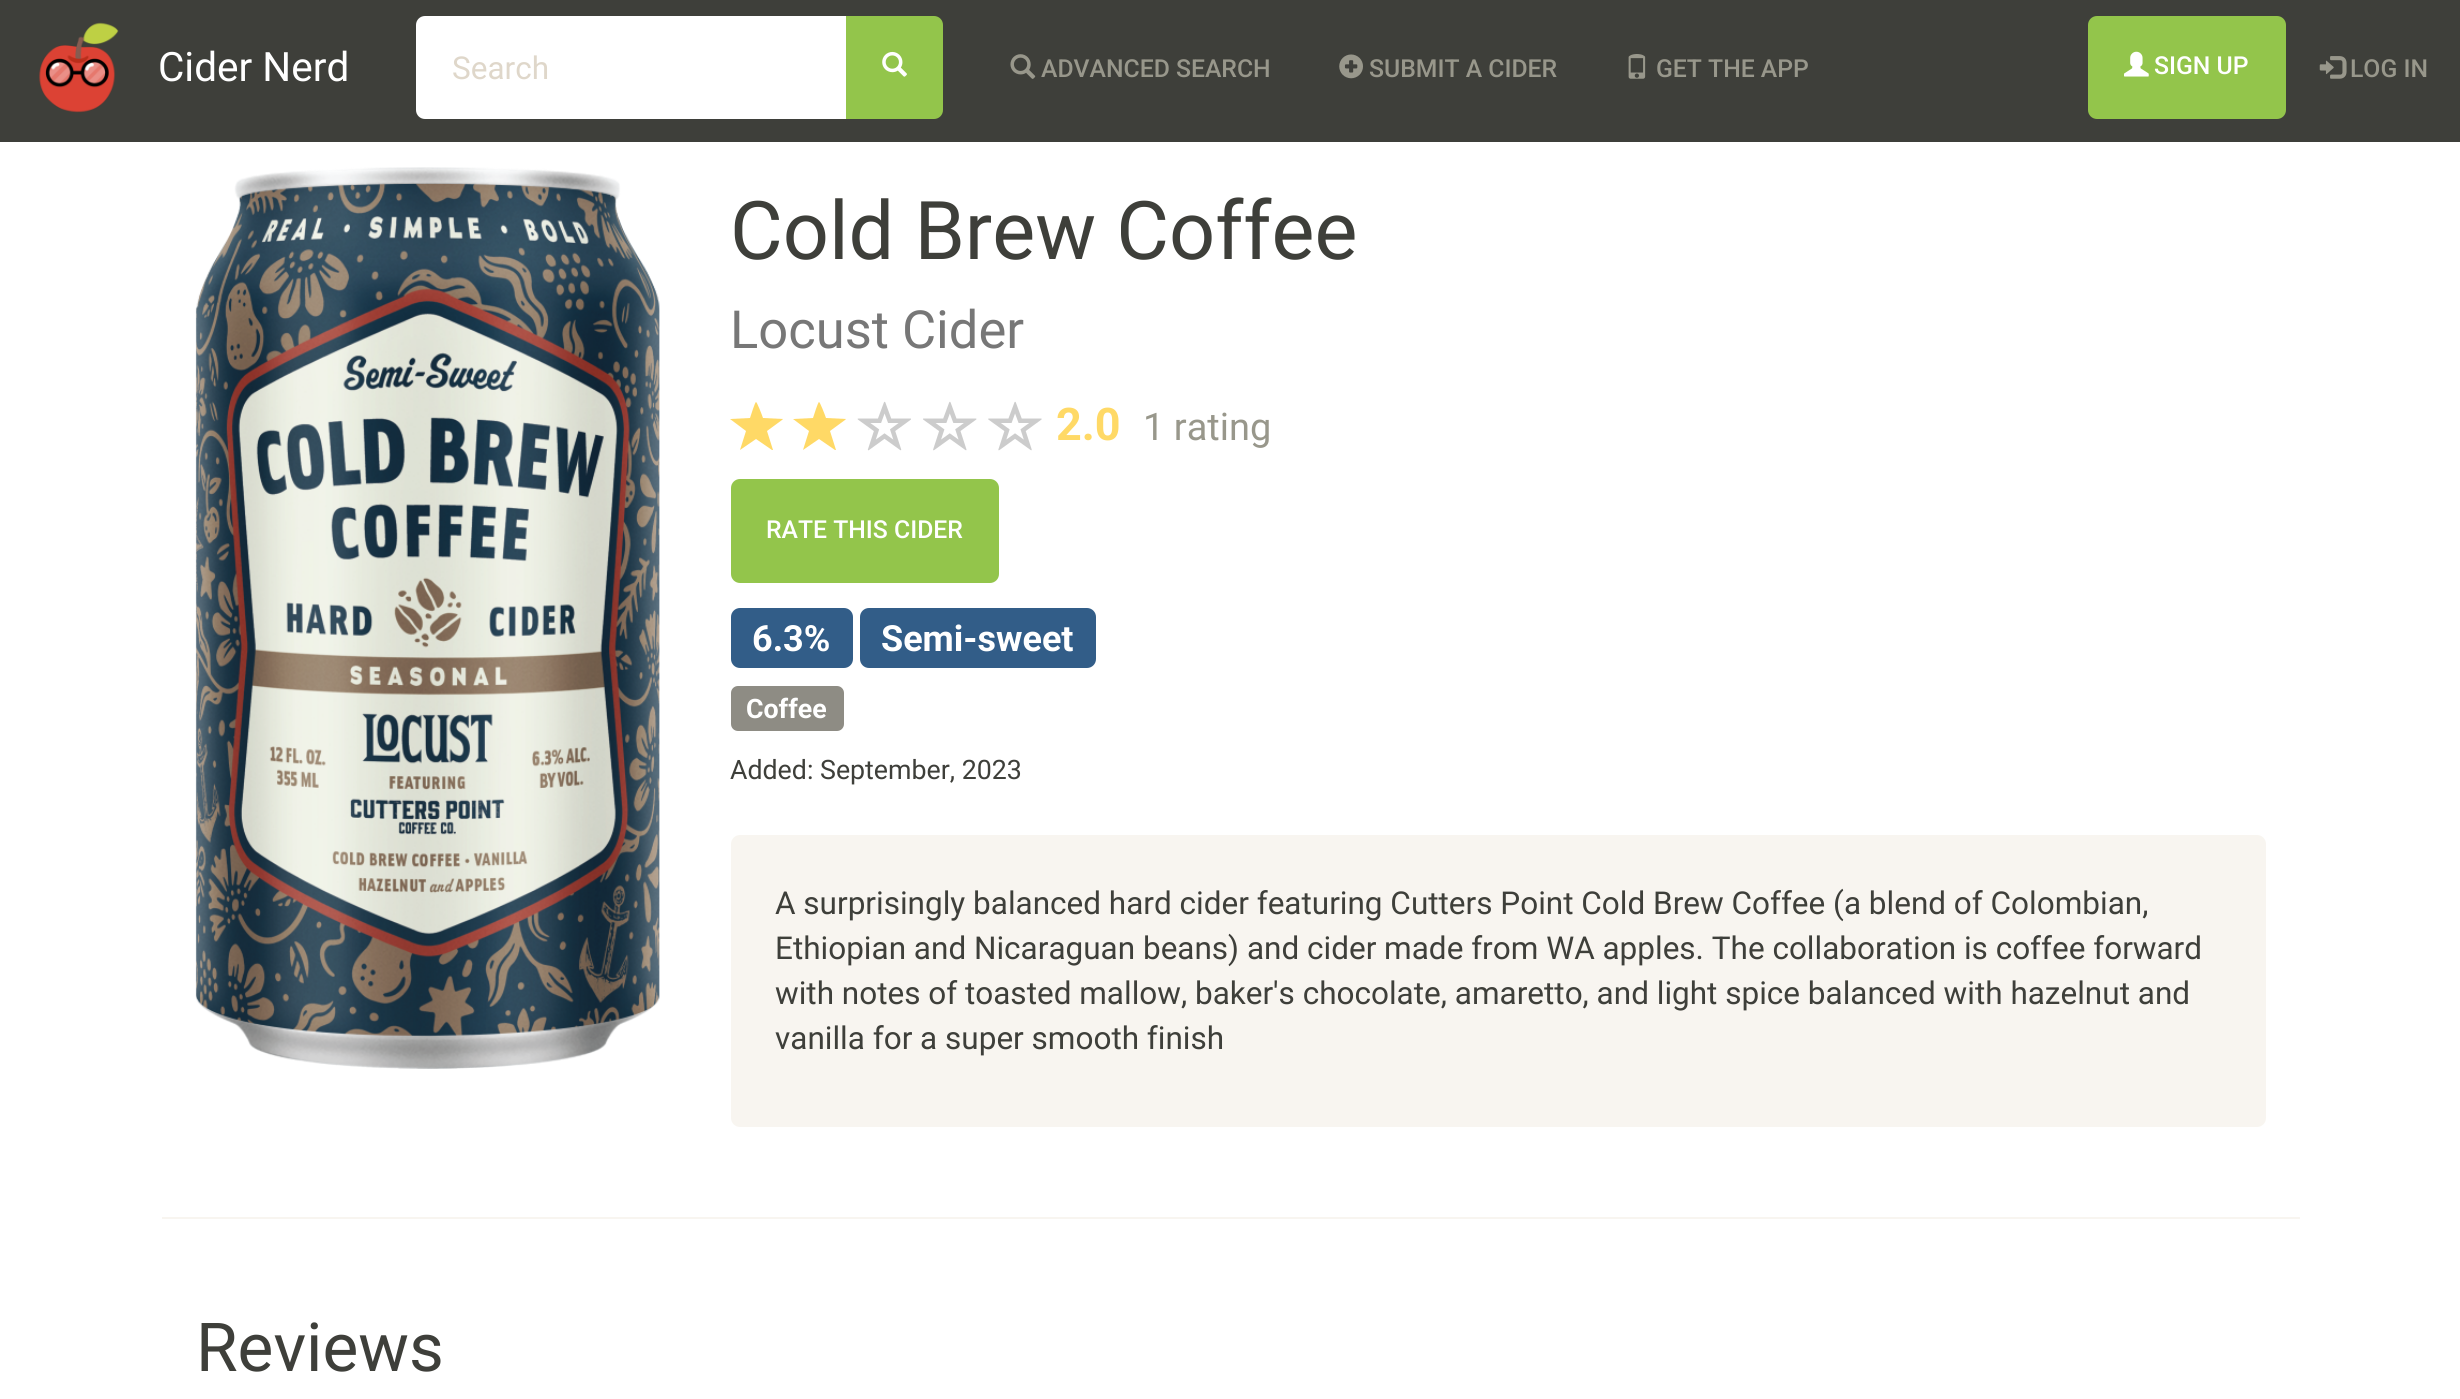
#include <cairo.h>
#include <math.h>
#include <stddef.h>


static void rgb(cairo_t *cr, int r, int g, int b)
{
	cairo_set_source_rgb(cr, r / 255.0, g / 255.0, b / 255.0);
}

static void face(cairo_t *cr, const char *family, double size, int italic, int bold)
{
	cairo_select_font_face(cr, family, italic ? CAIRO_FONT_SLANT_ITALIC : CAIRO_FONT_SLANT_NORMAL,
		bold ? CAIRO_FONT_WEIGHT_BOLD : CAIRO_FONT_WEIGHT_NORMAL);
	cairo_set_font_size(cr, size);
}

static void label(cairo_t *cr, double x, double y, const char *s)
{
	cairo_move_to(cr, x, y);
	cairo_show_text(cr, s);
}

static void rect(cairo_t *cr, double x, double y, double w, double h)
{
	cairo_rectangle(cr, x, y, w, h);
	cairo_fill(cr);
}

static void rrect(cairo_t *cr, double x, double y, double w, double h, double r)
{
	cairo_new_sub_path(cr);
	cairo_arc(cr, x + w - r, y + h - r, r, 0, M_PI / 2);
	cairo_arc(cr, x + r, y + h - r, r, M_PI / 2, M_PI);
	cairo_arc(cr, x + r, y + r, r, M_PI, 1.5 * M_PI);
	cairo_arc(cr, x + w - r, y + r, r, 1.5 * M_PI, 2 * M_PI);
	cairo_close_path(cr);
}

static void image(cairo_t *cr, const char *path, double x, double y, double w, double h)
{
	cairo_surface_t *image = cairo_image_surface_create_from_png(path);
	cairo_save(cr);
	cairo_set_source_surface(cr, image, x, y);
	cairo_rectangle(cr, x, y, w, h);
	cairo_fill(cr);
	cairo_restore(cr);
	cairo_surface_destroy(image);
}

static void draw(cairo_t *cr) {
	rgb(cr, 255, 255, 255);
	cairo_paint(cr);
	rgb(cr, 62, 63, 58);
	rect(cr, 0, 0, 2460, 142);
	image(cr, "image0.png", 39, 22, 80, 91);
	face(cr, "Roboto", 40.5, 0, 0);
	rgb(cr, 255, 255, 255);
	label(cr, 158, 81, "Cider Nerd");
	cairo_new_path(cr);
	cairo_move_to(cr, 425, 16);
	cairo_line_to(cr, 848, 16);
	cairo_line_to(cr, 848, 119);
	cairo_line_to(cr, 425, 119);
	cairo_curve_to(cr, 420, 119, 416, 115, 416, 110);
	cairo_line_to(cr, 416, 25);
	cairo_curve_to(cr, 416, 20, 420, 16, 425, 16);
	cairo_close_path(cr);
	cairo_fill(cr);
	face(cr, "Roboto", 31.5, 0, 0);
	rgb(cr, 223, 215, 202);
	label(cr, 452, 79, "Search");
	rgb(cr, 147, 197, 75);
	cairo_new_path(cr);
	cairo_move_to(cr, 846, 16);
	cairo_line_to(cr, 934, 16);
	cairo_curve_to(cr, 939, 16, 943, 20, 943, 25);
	cairo_line_to(cr, 943, 110);
	cairo_curve_to(cr, 943, 115, 939, 119, 934, 119);
	cairo_line_to(cr, 846, 119);
	cairo_close_path(cr);
	cairo_fill(cr);
	image(cr, "image1.png", 882, 51, 25, 26);
	image(cr, "image2.png", 1010, 54, 26, 25);
	face(cr, "Roboto Medium", 24.75, 0, 0);
	rgb(cr, 152, 151, 139);
	label(cr, 1041, 77, "ADVANCED SEARCH");
	image(cr, "image3.png", 1339, 54, 24, 25);
	label(cr, 1369, 77, "SUBMIT A CIDER");
	image(cr, "image4.png", 1628, 54, 18, 25);
	label(cr, 1656, 77, "GET THE APP");
	rgb(cr, 147, 197, 75);
	rrect(cr, 2088, 16, 198, 103, 9);
	cairo_fill(cr);
	image(cr, "image5.png", 2124, 51, 25, 26);
	rgb(cr, 255, 255, 255);
	label(cr, 2154, 74, "SIGN UP");
	image(cr, "image6.png", 2319, 56, 28, 23);
	rgb(cr, 152, 151, 139);
	label(cr, 2350, 77, "LOG IN");
	image(cr, "image7.png", 195, 167, 465, 902);
	face(cr, "Roboto", 81, 0, 0);
	rgb(cr, 62, 63, 58);
	label(cr, 730, 259, "Cold Brew Coffee");
	face(cr, "Roboto", 52.5, 0, 0);
	rgb(cr, 119, 119, 119);
	label(cr, 730, 348, "Locust Cider");
	rgb(cr, 255, 217, 102);
	cairo_new_path(cr);
	cairo_move_to(cr, 750, 418);
	cairo_curve_to(cr, 751, 415, 755, 402, 756, 402);
	cairo_curve_to(cr, 757, 402, 762, 415, 763, 418);
	cairo_line_to(cr, 783, 419);
	cairo_curve_to(cr, 783, 419, 783, 419, 782, 420);
	cairo_line_to(cr, 767, 431);
	cairo_line_to(cr, 773, 450);
	cairo_curve_to(cr, 773, 450, 773, 450, 772, 450);
	cairo_line_to(cr, 756, 439);
	cairo_line_to(cr, 740, 450);
	cairo_line_to(cr, 746, 431);
	cairo_line_to(cr, 730, 419);
	cairo_close_path(cr);
	cairo_fill(cr);
	cairo_new_path(cr);
	cairo_move_to(cr, 813, 418);
	cairo_curve_to(cr, 814, 415, 818, 402, 819, 402);
	cairo_curve_to(cr, 820, 402, 825, 415, 826, 418);
	cairo_line_to(cr, 846, 419);
	cairo_curve_to(cr, 846, 419, 846, 419, 845, 420);
	cairo_line_to(cr, 830, 431);
	cairo_line_to(cr, 836, 450);
	cairo_curve_to(cr, 836, 450, 836, 450, 835, 450);
	cairo_line_to(cr, 819, 439);
	cairo_line_to(cr, 803, 450);
	cairo_line_to(cr, 809, 431);
	cairo_line_to(cr, 793, 419);
	cairo_close_path(cr);
	cairo_fill(cr);
	image(cr, "image8.png", 857, 401, 54, 50);
	image(cr, "image9.png", 923, 401, 54, 50);
	image(cr, "image10.png", 988, 401, 54, 50);
	face(cr, "Roboto", 45, 0, 1);
	label(cr, 1056, 440, "2.0");
	face(cr, "Roboto", 38, 0, 0);
	rgb(cr, 152, 151, 139);
	label(cr, 1143, 440, "1 rating");
	rgb(cr, 147, 197, 75);
	rrect(cr, 731, 479, 268, 104, 9);
	cairo_fill(cr);
	face(cr, "Roboto Medium", 24.75, 0, 0);
	rgb(cr, 255, 255, 255);
	label(cr, 766, 538, "RATE THIS CIDER");
	rgb(cr, 50, 93, 136);
	rrect(cr, 731, 608, 122, 60, 9);
	cairo_fill(cr);
	face(cr, "Roboto", 36, 0, 1);
	rgb(cr, 255, 255, 255);
	label(cr, 752, 651, "6.3%");
	rgb(cr, 50, 93, 136);
	rrect(cr, 860, 608, 236, 60, 9);
	cairo_fill(cr);
	rgb(cr, 255, 255, 255);
	label(cr, 881, 651, "Semi-sweet");
	rgb(cr, 142, 140, 132);
	rrect(cr, 731, 686, 113, 45, 7);
	cairo_fill(cr);
	face(cr, "Roboto", 26.75, 0, 1);
	rgb(cr, 255, 255, 255);
	label(cr, 746, 718, "Coffee");
	face(cr, "Roboto", 26.75, 0, 0);
	rgb(cr, 62, 63, 58);
	label(cr, 730, 779, "Added: September, 2023");
	rgb(cr, 248, 245, 240);
	rrect(cr, 731, 835, 1535, 292, 9);
	cairo_fill(cr);
	face(cr, "Roboto", 31.5, 0, 0);
	rgb(cr, 62, 63, 58);
	label(cr, 775, 914, "A surprisingly balanced hard cider featuring Cutters Point Cold Brew Coffee (a blend of Colombian,");
	label(cr, 775, 959, "Ethiopian and Nicaraguan beans) and cider made from WA apples. The collaboration is coffee forward");
	label(cr, 775, 1004, "with notes of toasted mallow, baker's chocolate, amaretto, and light spice balanced with hazelnut and");
	label(cr, 775, 1049, "vanilla for a super smooth finish");
	rgb(cr, 248, 245, 240);
	rect(cr, 162, 1217, 2138, 2);
	face(cr, "Roboto", 67.5, 0, 0);
	rgb(cr, 62, 63, 58);
	label(cr, 196, 1371, "Reviews");
}

int main(void) {
	cairo_surface_t *surface = cairo_image_surface_create(CAIRO_FORMAT_RGB24, 2460, 1399);
	cairo_t *cr = cairo_create(surface);
	cairo_font_options_t *options = cairo_font_options_create();
	cairo_font_options_set_hint_metrics(options, CAIRO_HINT_METRICS_OFF);
	cairo_font_options_set_hint_style(options, CAIRO_HINT_STYLE_NONE);
	cairo_set_font_options(cr, options);
	cairo_set_miter_limit(cr, 4);
	draw(cr);
	cairo_surface_write_to_png(surface, "render.png");
	cairo_font_options_destroy(options);
	cairo_destroy(cr);
	cairo_surface_destroy(surface);
	return 0;
}
